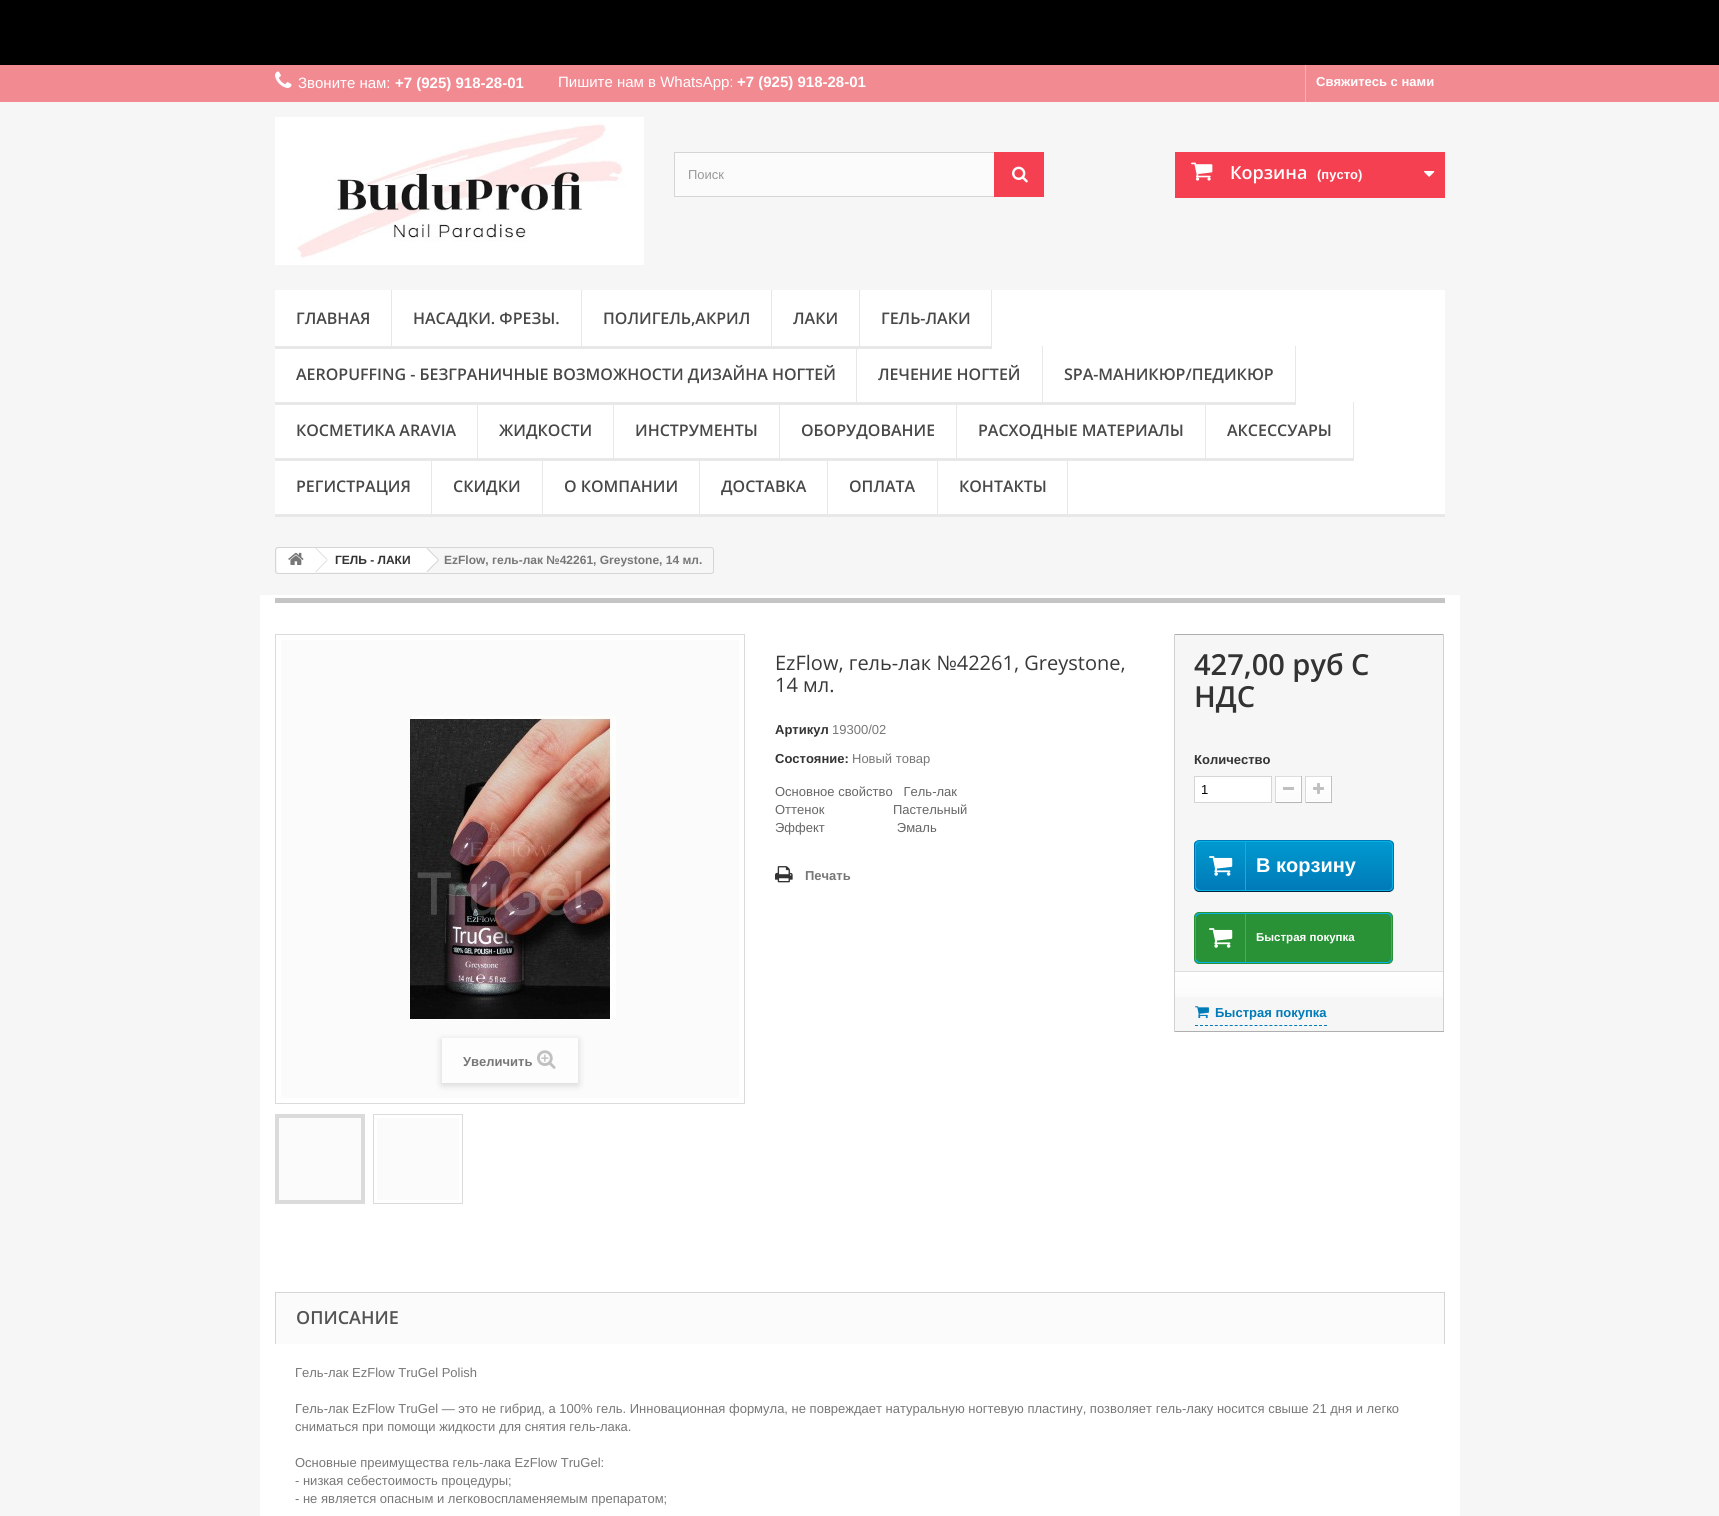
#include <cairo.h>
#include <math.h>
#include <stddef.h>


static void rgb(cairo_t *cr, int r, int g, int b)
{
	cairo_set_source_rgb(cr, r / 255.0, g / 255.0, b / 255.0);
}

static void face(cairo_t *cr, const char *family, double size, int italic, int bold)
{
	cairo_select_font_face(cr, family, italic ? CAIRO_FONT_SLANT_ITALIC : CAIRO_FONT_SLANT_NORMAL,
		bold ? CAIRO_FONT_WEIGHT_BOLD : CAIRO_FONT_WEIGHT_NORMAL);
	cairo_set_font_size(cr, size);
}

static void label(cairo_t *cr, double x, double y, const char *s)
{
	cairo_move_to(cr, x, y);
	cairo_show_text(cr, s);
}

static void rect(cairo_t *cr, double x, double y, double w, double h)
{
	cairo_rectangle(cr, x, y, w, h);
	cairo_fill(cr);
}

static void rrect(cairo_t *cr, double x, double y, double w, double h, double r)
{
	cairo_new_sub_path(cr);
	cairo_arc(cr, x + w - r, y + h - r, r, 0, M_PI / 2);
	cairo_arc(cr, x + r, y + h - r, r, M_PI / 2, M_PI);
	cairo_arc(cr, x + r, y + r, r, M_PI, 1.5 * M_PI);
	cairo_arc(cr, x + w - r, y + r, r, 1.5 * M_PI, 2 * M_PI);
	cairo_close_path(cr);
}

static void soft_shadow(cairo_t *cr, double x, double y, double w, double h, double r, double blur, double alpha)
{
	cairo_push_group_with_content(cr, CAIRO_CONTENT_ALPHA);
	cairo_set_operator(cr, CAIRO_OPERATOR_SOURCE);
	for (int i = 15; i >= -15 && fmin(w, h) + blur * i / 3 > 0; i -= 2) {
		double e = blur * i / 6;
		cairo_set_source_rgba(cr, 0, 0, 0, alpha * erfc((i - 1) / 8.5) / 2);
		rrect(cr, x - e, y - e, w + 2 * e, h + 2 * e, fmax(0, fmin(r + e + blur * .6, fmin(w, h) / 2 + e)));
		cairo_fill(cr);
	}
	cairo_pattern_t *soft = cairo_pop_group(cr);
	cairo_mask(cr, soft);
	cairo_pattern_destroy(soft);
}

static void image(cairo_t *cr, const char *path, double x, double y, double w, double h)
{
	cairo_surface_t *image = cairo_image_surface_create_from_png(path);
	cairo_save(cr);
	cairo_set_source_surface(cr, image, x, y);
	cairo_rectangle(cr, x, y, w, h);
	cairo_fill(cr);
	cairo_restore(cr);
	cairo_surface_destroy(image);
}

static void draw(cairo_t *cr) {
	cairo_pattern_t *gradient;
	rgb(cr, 246, 246, 246);
	cairo_paint(cr);
	rgb(cr, 0, 0, 0);
	rect(cr, 0, 0, 1719, 65);
	rgb(cr, 242, 138, 146);
	rect(cr, 0, 65, 1719, 37);
	image(cr, "image0.png", 275, 71, 17, 17);
	face(cr, "Liberation Sans", 15, 0, 0);
	rgb(cr, 255, 255, 255);
	label(cr, 298, 88, "Звоните нам:");
	face(cr, "Liberation Sans", 15, 0, 1);
	label(cr, 395, 88, "+7 (925) 918-28-01");
	face(cr, "Liberation Sans", 15, 0, 0);
	label(cr, 558, 87, "Пишите нам в WhatsApp:");
	face(cr, "Liberation Sans", 15, 0, 1);
	label(cr, 737, 87, "+7 (925) 918-28-01");
	rgb(cr, 198, 198, 198);
	rect(cr, 1305, 65, 1, 37);
	face(cr, "Liberation Sans", 13, 0, 1);
	rgb(cr, 255, 255, 255);
	label(cr, 1316, 86, "Свяжитесь с нами");
	image(cr, "image1.png", 275, 117, 369, 148);
	rgb(cr, 251, 251, 251);
	rect(cr, 675, 153, 319, 43);
	cairo_rectangle(cr, 674.5, 152.5, 369, 44);
	rgb(cr, 214, 212, 212);
	cairo_set_line_width(cr, 1);
	cairo_stroke(cr);
	face(cr, "Liberation Sans", 13, 0, 0);
	rgb(cr, 153, 153, 153);
	label(cr, 688, 179, "Поиск");
	rgb(cr, 244, 64, 81);
	rect(cr, 994, 152, 50, 45);
	image(cr, "image2.png", 1012, 166, 16, 17);
	rect(cr, 1175, 152, 270, 46);
	image(cr, "image3.png", 1191, 162, 22, 19);
	face(cr, "Open Sans SemiBold", 18, 0, 0);
	rgb(cr, 255, 255, 255);
	label(cr, 1230, 179, "Корзина");
	face(cr, "Liberation Sans", 13, 0, 1);
	label(cr, 1317, 179, "(пусто)");
	image(cr, "image4.png", 1424, 171, 11, 6);
	rect(cr, 275, 290, 1170, 224);
	rgb(cr, 232, 232, 232);
	rect(cr, 275, 514, 1170, 3);
	rect(cr, 391, 290, 1, 59);
	rect(cr, 275, 346, 116, 3);
	face(cr, "Open Sans SemiBold", 16, 0, 0);
	rgb(cr, 72, 72, 72);
	label(cr, 296, 324, "ГЛАВНАЯ");
	rgb(cr, 232, 232, 232);
	rect(cr, 581, 290, 1, 59);
	rect(cr, 392, 346, 189, 3);
	rgb(cr, 72, 72, 72);
	label(cr, 413, 324, "НАСАДКИ. ФРЕЗЫ.");
	rgb(cr, 232, 232, 232);
	rect(cr, 771, 290, 1, 59);
	rect(cr, 582, 346, 189, 3);
	rgb(cr, 72, 72, 72);
	label(cr, 603, 324, "ПОЛИГЕЛЬ,АКРИЛ");
	rgb(cr, 232, 232, 232);
	rect(cr, 859, 290, 1, 59);
	rect(cr, 772, 346, 87, 3);
	rgb(cr, 72, 72, 72);
	label(cr, 793, 324, "ЛАКИ");
	rgb(cr, 232, 232, 232);
	rect(cr, 991, 290, 1, 59);
	rect(cr, 860, 346, 131, 3);
	rgb(cr, 72, 72, 72);
	label(cr, 881, 324, "ГЕЛЬ-ЛАКИ");
	rgb(cr, 232, 232, 232);
	rect(cr, 856, 346, 1, 59);
	rect(cr, 275, 402, 581, 3);
	rgb(cr, 72, 72, 72);
	label(cr, 296, 380, "AEROPUFFING - БЕЗГРАНИЧНЫЕ ВОЗМОЖНОСТИ ДИЗАЙНА НОГТЕЙ");
	rgb(cr, 232, 232, 232);
	rect(cr, 1042, 346, 1, 59);
	rect(cr, 857, 402, 185, 3);
	rgb(cr, 72, 72, 72);
	label(cr, 878, 380, "ЛЕЧЕНИЕ НОГТЕЙ");
	rgb(cr, 232, 232, 232);
	rect(cr, 1295, 346, 1, 59);
	rect(cr, 1043, 402, 252, 3);
	rgb(cr, 72, 72, 72);
	label(cr, 1064, 380, "SPA-МАНИКЮР/ПЕДИКЮР");
	rgb(cr, 232, 232, 232);
	rect(cr, 477, 402, 1, 59);
	rect(cr, 275, 458, 202, 3);
	rgb(cr, 72, 72, 72);
	label(cr, 296, 436, "КОСМЕТИКА ARAVIA");
	rgb(cr, 232, 232, 232);
	rect(cr, 613, 402, 1, 59);
	rect(cr, 478, 458, 135, 3);
	rgb(cr, 72, 72, 72);
	label(cr, 499, 436, "ЖИДКОСТИ");
	rgb(cr, 232, 232, 232);
	rect(cr, 779, 402, 1, 59);
	rect(cr, 614, 458, 165, 3);
	rgb(cr, 72, 72, 72);
	label(cr, 635, 436, "ИНСТРУМЕНТЫ");
	rgb(cr, 232, 232, 232);
	rect(cr, 956, 402, 1, 59);
	rect(cr, 780, 458, 176, 3);
	rgb(cr, 72, 72, 72);
	label(cr, 801, 436, "ОБОРУДОВАНИЕ");
	rgb(cr, 232, 232, 232);
	rect(cr, 1205, 402, 1, 59);
	rect(cr, 957, 458, 248, 3);
	rgb(cr, 72, 72, 72);
	label(cr, 978, 436, "РАСХОДНЫЕ МАТЕРИАЛЫ");
	rgb(cr, 232, 232, 232);
	rect(cr, 1353, 402, 1, 59);
	rect(cr, 1206, 458, 147, 3);
	rgb(cr, 72, 72, 72);
	label(cr, 1227, 436, "АКСЕССУАРЫ");
	rgb(cr, 232, 232, 232);
	rect(cr, 431, 458, 1, 59);
	rgb(cr, 72, 72, 72);
	label(cr, 296, 492, "РЕГИСТРАЦИЯ");
	rgb(cr, 232, 232, 232);
	rect(cr, 542, 458, 1, 59);
	rgb(cr, 72, 72, 72);
	label(cr, 453, 492, "СКИДКИ");
	rgb(cr, 232, 232, 232);
	rect(cr, 699, 458, 1, 59);
	rgb(cr, 72, 72, 72);
	label(cr, 564, 492, "О КОМПАНИИ");
	rgb(cr, 232, 232, 232);
	rect(cr, 827, 458, 1, 59);
	rgb(cr, 72, 72, 72);
	label(cr, 721, 492, "ДОСТАВКА");
	rgb(cr, 232, 232, 232);
	rect(cr, 937, 458, 1, 59);
	rgb(cr, 72, 72, 72);
	label(cr, 849, 492, "ОПЛАТА");
	rgb(cr, 232, 232, 232);
	rect(cr, 1067, 458, 1, 59);
	rgb(cr, 72, 72, 72);
	label(cr, 959, 492, "КОНТАКТЫ");
	rrect(cr, 275.5, 547.5, 438, 26, 2.5);
	rgb(cr, 214, 212, 212);
	cairo_stroke(cr);
	rgb(cr, 255, 255, 255);
	cairo_new_path(cr);
	cairo_move_to(cr, 280, 548);
	cairo_line_to(cr, 315, 548);
	cairo_line_to(cr, 315, 573);
	cairo_line_to(cr, 280, 573);
	cairo_curve_to(cr, 278.5, 573, 277, 571.5, 277, 570);
	cairo_line_to(cr, 277, 551);
	cairo_curve_to(cr, 277, 549.5, 278.5, 548, 280, 548);
	cairo_close_path(cr);
	cairo_fill(cr);
	image(cr, "image5.png", 288, 552, 16, 13);
	rect(cr, 315, 548, 111, 24);
	rgb(cr, 214, 212, 212);
	cairo_new_path(cr);
	cairo_move_to(cr, 316, 548);
	cairo_line_to(cr, 327.5, 559.5);
	cairo_line_to(cr, 327, 560);
	cairo_line_to(cr, 315.5, 548.5);
	cairo_close_path(cr);
	cairo_move_to(cr, 327, 560);
	cairo_line_to(cr, 327.5, 560.5);
	cairo_line_to(cr, 316, 572);
	cairo_line_to(cr, 315.5, 571.5);
	cairo_close_path(cr);
	cairo_fill(cr);
	face(cr, "Liberation Sans", 12, 0, 1);
	rgb(cr, 51, 51, 51);
	label(cr, 335, 564, "ГЕЛЬ - ЛАКИ");
	rgb(cr, 255, 255, 255);
	cairo_new_path(cr);
	cairo_move_to(cr, 428, 548.5);
	cairo_line_to(cr, 438, 558.5);
	cairo_curve_to(cr, 439, 559.5, 439, 560.5, 438, 561.5);
	cairo_line_to(cr, 428, 571.5);
	cairo_curve_to(cr, 427.5, 572, 426, 572, 425.5, 571.5);
	cairo_line_to(cr, 415.5, 561.5);
	cairo_curve_to(cr, 414.5, 560.5, 414.5, 559.5, 415.5, 558.5);
	cairo_line_to(cr, 425.5, 548.5);
	cairo_curve_to(cr, 426, 548, 427.5, 548, 428, 548.5);
	cairo_close_path(cr);
	cairo_fill(cr);
	rgb(cr, 214, 212, 212);
	cairo_new_path(cr);
	cairo_move_to(cr, 427.5, 548);
	cairo_line_to(cr, 439, 559.5);
	cairo_line_to(cr, 438, 560);
	cairo_line_to(cr, 426.5, 548.5);
	cairo_close_path(cr);
	cairo_move_to(cr, 438, 560);
	cairo_line_to(cr, 439, 560.5);
	cairo_line_to(cr, 427.5, 572);
	cairo_line_to(cr, 426.5, 571.5);
	cairo_close_path(cr);
	cairo_fill(cr);
	rgb(cr, 119, 119, 119);
	label(cr, 444, 564, "EzFlow, гель-лак №42261, Greystone, 14 мл.");
	rgb(cr, 255, 255, 255);
	rect(cr, 260, 595, 1200, 921);
	rgb(cr, 196, 196, 196);
	rect(cr, 275, 598, 1170, 5);
	face(cr, "Open Sans", 20, 0, 0);
	rgb(cr, 58, 57, 57);
	label(cr, 775, 670, "EzFlow, гель-лак №42261, Greystone,");
	label(cr, 775, 692, "14 мл.");
	face(cr, "Liberation Sans", 13, 0, 1);
	rgb(cr, 51, 51, 51);
	label(cr, 775, 734, "Артикул");
	face(cr, "Liberation Sans", 13, 0, 0);
	rgb(cr, 119, 119, 119);
	label(cr, 832, 734, "19300/02");
	face(cr, "Liberation Sans", 13, 0, 1);
	rgb(cr, 51, 51, 51);
	label(cr, 775, 763, "Состояние:");
	face(cr, "Liberation Sans", 13, 0, 0);
	rgb(cr, 119, 119, 119);
	label(cr, 852, 763, "Новый товар");
	rgb(cr, 102, 102, 102);
	label(cr, 775, 796, "Основное свойство   Гель-лак");
	label(cr, 775, 814, "Оттенок                   Пастельный");
	label(cr, 775, 832, "Эффект                    Эмаль");
	image(cr, "image6.png", 775, 866, 18, 17);
	face(cr, "Liberation Sans", 13, 0, 1);
	rgb(cr, 119, 119, 119);
	label(cr, 805, 880, "Печать");
	rgb(cr, 246, 246, 246);
	rect(cr, 1175, 635, 268, 396);
	rgb(cr, 176, 175, 175);
	rect(cr, 1174, 634, 270, 1);
	rgb(cr, 210, 208, 208);
	rect(cr, 1443, 634, 1, 398);
	rgb(cr, 176, 175, 175);
	rect(cr, 1174, 1031, 270, 1);
	rgb(cr, 210, 208, 208);
	rect(cr, 1174, 634, 1, 398);
	face(cr, "Open Sans SemiBold", 29, 0, 0);
	rgb(cr, 51, 51, 51);
	label(cr, 1194, 675, "427,00 руб С");
	label(cr, 1194, 707, "НДС");
	face(cr, "Liberation Sans", 13, 0, 1);
	label(cr, 1194, 764, "Количество");
	rgb(cr, 255, 255, 255);
	cairo_rectangle(cr, 1194.5, 776.5, 77, 26);
	cairo_fill_preserve(cr);
	rgb(cr, 214, 212, 212);
	cairo_stroke(cr);
	face(cr, "Liberation Sans", 13, 0, 0);
	rgb(cr, 0, 0, 0);
	label(cr, 1201, 794, "1");
	rgb(cr, 222, 220, 220);
	rect(cr, 1275, 776, 27, 1);
	rgb(cr, 193, 191, 191);
	rect(cr, 1301, 776, 1, 27);
	rgb(cr, 181, 180, 180);
	rect(cr, 1275, 802, 27, 1);
	rgb(cr, 218, 216, 216);
	rect(cr, 1275, 776, 1, 27);
	gradient = cairo_pattern_create_linear(1289, 778, 1289, 801);
	cairo_pattern_add_color_stop_rgba(gradient, 0, 1, 1, 1, 1);
	cairo_pattern_add_color_stop_rgba(gradient, 1, 0.984, 0.984, 0.984, 1);
	cairo_set_source(cr, gradient);
	cairo_pattern_destroy(gradient);
	rect(cr, 1277, 778, 23, 23);
	cairo_rectangle(cr, 1276.5, 777.5, 24, 24);
	rgb(cr, 255, 255, 255);
	cairo_stroke(cr);
	rgb(cr, 192, 192, 192);
	rect(cr, 1283, 787, 11, 3);
	rgb(cr, 222, 220, 220);
	rect(cr, 1305, 776, 27, 1);
	rgb(cr, 193, 191, 191);
	rect(cr, 1331, 776, 1, 27);
	rgb(cr, 181, 180, 180);
	rect(cr, 1305, 802, 27, 1);
	rgb(cr, 218, 216, 216);
	rect(cr, 1305, 776, 1, 27);
	gradient = cairo_pattern_create_linear(1319, 778, 1319, 801);
	cairo_pattern_add_color_stop_rgba(gradient, 0, 1, 1, 1, 1);
	cairo_pattern_add_color_stop_rgba(gradient, 1, 0.984, 0.984, 0.984, 1);
	cairo_set_source(cr, gradient);
	cairo_pattern_destroy(gradient);
	rect(cr, 1307, 778, 23, 23);
	cairo_rectangle(cr, 1306.5, 777.5, 24, 24);
	rgb(cr, 255, 255, 255);
	cairo_stroke(cr);
	image(cr, "image7.png", 1313, 783, 11, 11);
	cairo_save(cr);
	rrect(cr, 1194, 840, 200, 52, 5);
	cairo_clip(cr);
	gradient = cairo_pattern_create_linear(1294, 841, 1294, 891);
	cairo_pattern_add_color_stop_rgba(gradient, 0, 0, 0.604, 0.816, 1);
	cairo_pattern_add_color_stop_rgba(gradient, 1, 0, 0.478, 0.718, 1);
	cairo_set_source(cr, gradient);
	cairo_pattern_destroy(gradient);
	rect(cr, 1194, 841, 200, 50);
	cairo_restore(cr);
	cairo_new_path(cr);
	cairo_move_to(cr, 1196, 842);
	cairo_curve_to(cr, 1196.5, 841, 1198, 840.5, 1199, 840.5);
	cairo_line_to(cr, 1389, 840.5);
	cairo_curve_to(cr, 1390, 840.5, 1391.5, 841, 1392, 842);
	rgb(cr, 0, 121, 182);
	cairo_stroke(cr);
	cairo_new_path(cr);
	cairo_move_to(cr, 1392, 842);
	cairo_curve_to(cr, 1393, 842.5, 1393.5, 844, 1393.5, 845);
	cairo_line_to(cr, 1393.5, 887);
	cairo_curve_to(cr, 1393.5, 888, 1393, 889.5, 1392, 890);
	rgb(cr, 0, 111, 168);
	cairo_stroke(cr);
	cairo_new_path(cr);
	cairo_move_to(cr, 1392, 890);
	cairo_curve_to(cr, 1391.5, 891, 1390, 891.5, 1389, 891.5);
	cairo_line_to(cr, 1199, 891.5);
	cairo_curve_to(cr, 1198, 891.5, 1196.5, 891, 1196, 890);
	rgb(cr, 1, 39, 64);
	cairo_stroke(cr);
	cairo_new_path(cr);
	cairo_move_to(cr, 1196, 890);
	cairo_curve_to(cr, 1195, 889.5, 1194.5, 888, 1194.5, 887);
	cairo_line_to(cr, 1194.5, 845);
	cairo_curve_to(cr, 1194.5, 844, 1195, 842.5, 1196, 842);
	rgb(cr, 0, 111, 168);
	cairo_stroke(cr);
	rrect(cr, 1195.5, 841.5, 197, 49, 4.5);
	rgb(cr, 6, 178, 230);
	cairo_stroke(cr);
	cairo_new_path(cr);
	cairo_move_to(cr, 1200, 841.5);
	cairo_line_to(cr, 1245.5, 841.5);
	cairo_line_to(cr, 1245.5, 890.5);
	cairo_line_to(cr, 1200, 890.5);
	cairo_curve_to(cr, 1197.5, 890.5, 1195.5, 888.5, 1195.5, 886);
	cairo_line_to(cr, 1195.5, 846);
	cairo_curve_to(cr, 1195.5, 843.5, 1197.5, 841.5, 1200, 841.5);
	cairo_close_path(cr);
	cairo_stroke(cr);
	image(cr, "image8.png", 1209, 856, 24, 20);
	face(cr, "Liberation Sans", 20, 0, 1);
	rgb(cr, 255, 255, 255);
	label(cr, 1256, 872, "В корзину");
	rgb(cr, 42, 146, 54);
	rrect(cr, 1194.5, 912.5, 198, 51, 4.5);
	cairo_fill_preserve(cr);
	cairo_stroke(cr);
	rrect(cr, 1195.5, 913.5, 196, 49, 4.5);
	rgb(cr, 6, 178, 230);
	cairo_stroke(cr);
	cairo_new_path(cr);
	cairo_move_to(cr, 1200, 913.5);
	cairo_line_to(cr, 1245.5, 913.5);
	cairo_line_to(cr, 1245.5, 962.5);
	cairo_line_to(cr, 1200, 962.5);
	cairo_curve_to(cr, 1197.5, 962.5, 1195.5, 960.5, 1195.5, 958);
	cairo_line_to(cr, 1195.5, 918);
	cairo_curve_to(cr, 1195.5, 915.5, 1197.5, 913.5, 1200, 913.5);
	cairo_close_path(cr);
	cairo_stroke(cr);
	image(cr, "image9.png", 1209, 928, 24, 20);
	face(cr, "Liberation Sans", 11.5, 0, 1);
	rgb(cr, 255, 255, 255);
	label(cr, 1256, 941, "Быстрая покупка");
	gradient = cairo_pattern_create_linear(1309, 972, 1309, 997);
	cairo_pattern_add_color_stop_rgba(gradient, 0, 1, 1, 1, 1);
	cairo_pattern_add_color_stop_rgba(gradient, 1, 0.984, 0.984, 0.984, 1);
	cairo_set_source(cr, gradient);
	cairo_pattern_destroy(gradient);
	rect(cr, 1175, 972, 268, 25);
	rgb(cr, 223, 222, 222);
	rect(cr, 1175, 971, 268, 1);
	cairo_new_path(cr);
	cairo_move_to(cr, 1195, 1025.5);
	cairo_line_to(cr, 1327, 1025.5);
	rgb(cr, 0, 123, 184);
	cairo_set_dash(cr, (double[]){3, 1.96}, 2, 0);
	cairo_stroke(cr);
	image(cr, "image10.png", 1195, 1006, 14, 13);
	face(cr, "Liberation Sans", 13, 0, 1);
	label(cr, 1215, 1017, "Быстрая покупка");
	cairo_rectangle(cr, 275.5, 634.5, 469, 469);
	rgb(cr, 219, 219, 219);
	cairo_set_dash(cr, NULL, 0, 0);
	cairo_stroke(cr);
	rgb(cr, 251, 251, 251);
	rect(cr, 281, 640, 458, 458);
	image(cr, "image11.png", 410, 716, 206, 304);
	rgb(cr, 0, 0, 0);
	soft_shadow(cr, 442, 1040, 136, 45, 0, 4, 0.16);
	rgb(cr, 253, 253, 253);
	rect(cr, 442, 1038, 136, 45);
	rgb(cr, 119, 119, 119);
	label(cr, 463, 1066, "Увеличить");
	image(cr, "image12.png", 537, 1050, 19, 19);
	cairo_rectangle(cr, 275.5, 1114.5, 89, 89);
	rgb(cr, 219, 219, 219);
	cairo_stroke(cr);
	rgb(cr, 251, 251, 251);
	cairo_rectangle(cr, 277.5, 1116.5, 85, 85);
	cairo_fill_preserve(cr);
	rgb(cr, 219, 219, 219);
	cairo_set_line_width(cr, 3);
	cairo_stroke(cr);
	cairo_rectangle(cr, 373.5, 1114.5, 89, 89);
	cairo_set_line_width(cr, 1);
	cairo_stroke(cr);
	rgb(cr, 251, 251, 251);
	rect(cr, 377, 1118, 82, 82);
	rect(cr, 276, 1293, 1168, 51);
	rgb(cr, 214, 212, 212);
	rect(cr, 275, 1292, 1170, 1);
	rect(cr, 1444, 1292, 1, 52);
	rect(cr, 275, 1292, 1, 52);
	face(cr, "Open Sans SemiBold", 18, 0, 0);
	rgb(cr, 85, 84, 84);
	label(cr, 296, 1324, "ОПИСАНИЕ");
	face(cr, "Liberation Sans", 13, 0, 0);
	rgb(cr, 119, 119, 119);
	label(cr, 295, 1377, "Гель-лак EzFlow TruGel Polish");
	label(cr, 295, 1413, "Гель-лак EzFlow TruGel — это не гибрид, а 100% гель. Инновационная формула, не повреждает натуральную ногтевую пластину, позволяет гель-лаку носится свыше 21 дня и легко");
	label(cr, 295, 1431, "сниматься при помощи жидкости для снятия гель-лака.");
	label(cr, 295, 1467, "Основные преимущества гель-лака EzFlow TruGel:");
	label(cr, 295, 1485, "- низкая себестоимость процедуры;");
	label(cr, 295, 1503, "- не является опасным и легковоспламеняемым препаратом;");
}

int main(void) {
	cairo_surface_t *surface = cairo_image_surface_create(CAIRO_FORMAT_RGB24, 1719, 1516);
	cairo_t *cr = cairo_create(surface);
	cairo_font_options_t *options = cairo_font_options_create();
	cairo_font_options_set_hint_metrics(options, CAIRO_HINT_METRICS_OFF);
	cairo_font_options_set_hint_style(options, CAIRO_HINT_STYLE_NONE);
	cairo_set_font_options(cr, options);
	cairo_set_miter_limit(cr, 4);
	draw(cr);
	cairo_surface_write_to_png(surface, "render.png");
	cairo_font_options_destroy(options);
	cairo_destroy(cr);
	cairo_surface_destroy(surface);
	return 0;
}
